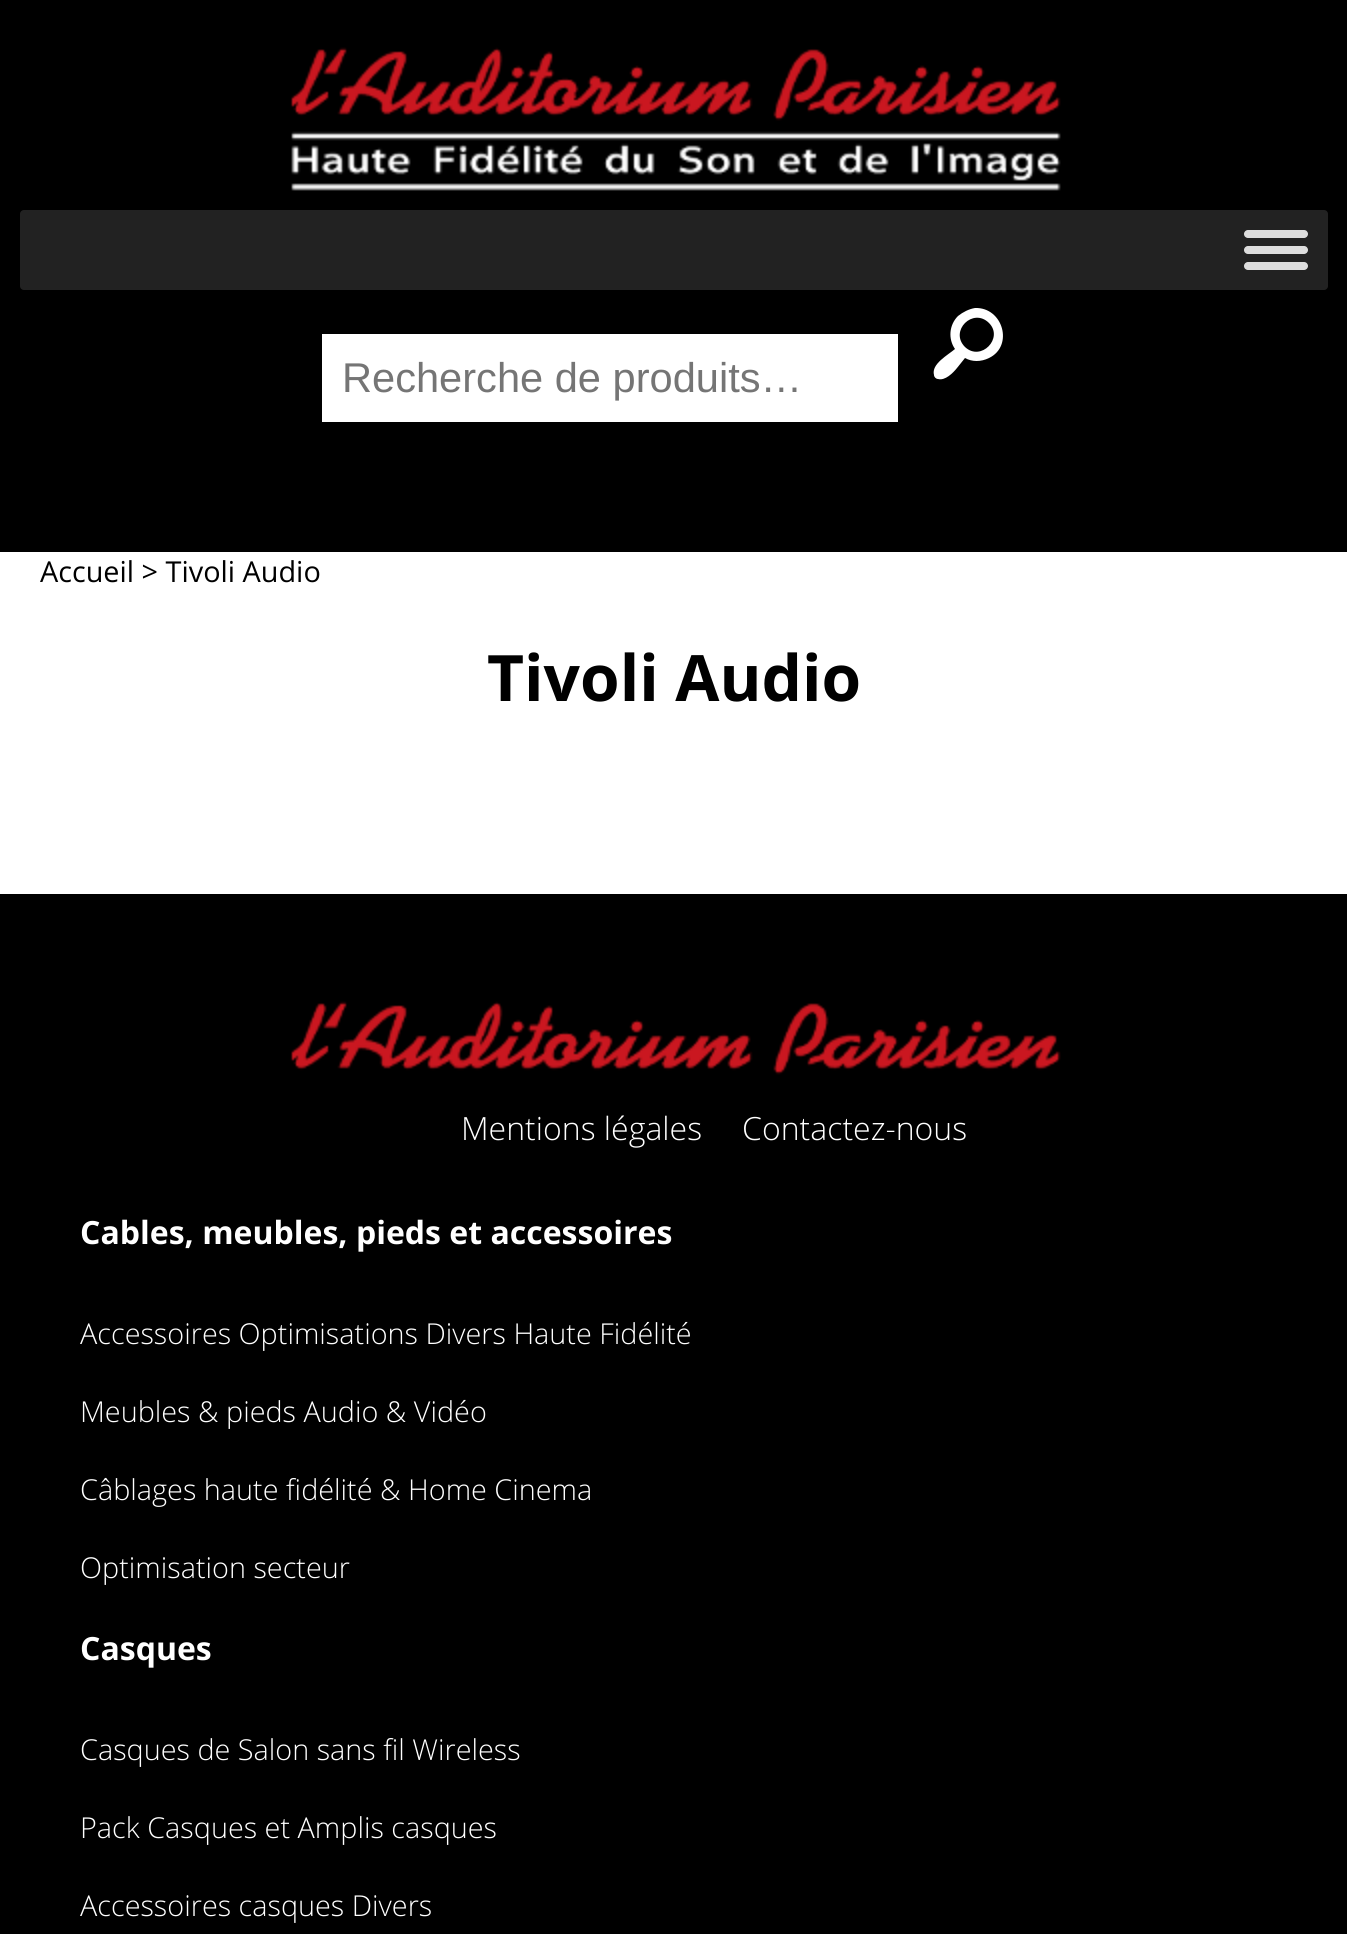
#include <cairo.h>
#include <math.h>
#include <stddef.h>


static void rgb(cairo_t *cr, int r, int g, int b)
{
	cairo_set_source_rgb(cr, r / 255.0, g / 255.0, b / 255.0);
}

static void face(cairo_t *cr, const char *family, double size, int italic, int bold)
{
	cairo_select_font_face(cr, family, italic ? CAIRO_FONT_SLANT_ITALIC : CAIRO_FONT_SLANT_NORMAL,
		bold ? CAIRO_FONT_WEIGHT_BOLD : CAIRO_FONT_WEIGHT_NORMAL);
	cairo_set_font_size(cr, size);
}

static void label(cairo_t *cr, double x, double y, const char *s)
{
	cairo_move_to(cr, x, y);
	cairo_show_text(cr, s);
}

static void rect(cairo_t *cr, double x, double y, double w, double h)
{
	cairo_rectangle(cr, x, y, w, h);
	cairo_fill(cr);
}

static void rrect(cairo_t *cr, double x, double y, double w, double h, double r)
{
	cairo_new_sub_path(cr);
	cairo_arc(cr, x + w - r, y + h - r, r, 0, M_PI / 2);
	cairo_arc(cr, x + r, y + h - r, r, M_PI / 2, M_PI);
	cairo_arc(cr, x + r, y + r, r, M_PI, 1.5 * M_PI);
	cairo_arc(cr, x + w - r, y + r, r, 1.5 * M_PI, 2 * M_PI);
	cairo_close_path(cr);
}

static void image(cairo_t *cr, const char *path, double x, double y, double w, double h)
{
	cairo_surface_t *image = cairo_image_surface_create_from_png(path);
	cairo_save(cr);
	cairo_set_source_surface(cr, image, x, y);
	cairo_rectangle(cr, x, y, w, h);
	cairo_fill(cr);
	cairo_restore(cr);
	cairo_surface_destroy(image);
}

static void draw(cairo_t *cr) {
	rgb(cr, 255, 255, 255);
	cairo_paint(cr);
	rgb(cr, 0, 0, 0);
	rect(cr, 0, 0, 1347, 552);
	image(cr, "image0.png", 290, 47, 771, 144);
	rgb(cr, 34, 34, 34);
	rrect(cr, 20, 210, 1308, 80, 4);
	cairo_fill(cr);
	rgb(cr, 221, 221, 221);
	rrect(cr, 1244, 230, 64, 8, 4);
	cairo_fill(cr);
	rrect(cr, 1244, 246, 64, 8, 4);
	cairo_fill(cr);
	rrect(cr, 1244, 262, 64, 8, 4);
	cairo_fill(cr);
	rgb(cr, 255, 255, 255);
	rect(cr, 322, 334, 576, 88);
	face(cr, "Liberation Sans", 41.6, 0, 0);
	rgb(cr, 117, 117, 117);
	label(cr, 342, 392, "Recherche de produits…");
	rgb(cr, 255, 255, 255);
	cairo_new_path(cr);
	cairo_move_to(cr, 958, 316);
	cairo_curve_to(cr, 949, 325, 948, 339, 955, 349);
	cairo_curve_to(cr, 948, 355, 931, 364, 934, 375);
	cairo_curve_to(cr, 934, 377, 936, 379, 938, 379);
	cairo_curve_to(cr, 945, 381, 953, 373, 957, 368);
	cairo_line_to(cr, 965, 358);
	cairo_curve_to(cr, 972, 362, 981, 362, 989, 358);
	cairo_curve_to(cr, 1014, 346, 1003, 307, 975, 308);
	cairo_curve_to(cr, 969, 309, 963, 312, 958, 316);
	cairo_close_path(cr);
	cairo_move_to(cr, 965, 347);
	cairo_curve_to(cr, 949, 331, 973, 307, 989, 323);
	cairo_curve_to(cr, 1004, 338, 981, 362, 965, 347);
	cairo_close_path(cr);
	cairo_fill(cr);
	face(cr, "Open Sans", 28.8, 0, 0);
	rgb(cr, 0, 0, 0);
	label(cr, 40, 582, "Accueil > Tivoli Audio");
	face(cr, "Open Sans", 64, 0, 1);
	label(cr, 487, 701, "Tivoli Audio");
	rect(cr, 0, 894, 1347, 1040);
	image(cr, "image1.png", 290, 1001, 771, 74);
	face(cr, "Open Sans Light", 32, 0, 0);
	rgb(cr, 255, 255, 255);
	label(cr, 461, 1140, "Mentions légales");
	label(cr, 742, 1140, "Contactez-nous");
	face(cr, "Open Sans", 32, 0, 1);
	label(cr, 80, 1244, "Cables, meubles, pieds et accessoires");
	face(cr, "Open Sans Light", 28.8, 0, 0);
	label(cr, 80, 1344, "Accessoires Optimisations Divers Haute Fidélité");
	label(cr, 80, 1422, "Meubles & pieds Audio & Vidéo");
	label(cr, 80, 1500, "Câblages haute fidélité & Home Cinema");
	label(cr, 80, 1578, "Optimisation secteur");
	face(cr, "Open Sans", 32, 0, 1);
	label(cr, 80, 1660, "Casques");
	face(cr, "Open Sans Light", 28.8, 0, 0);
	label(cr, 80, 1760, "Casques de Salon sans fil Wireless");
	label(cr, 80, 1838, "Pack Casques et Amplis casques");
	label(cr, 80, 1916, "Accessoires casques Divers");
}

int main(void) {
	cairo_surface_t *surface = cairo_image_surface_create(CAIRO_FORMAT_RGB24, 1347, 1934);
	cairo_t *cr = cairo_create(surface);
	cairo_font_options_t *options = cairo_font_options_create();
	cairo_font_options_set_hint_metrics(options, CAIRO_HINT_METRICS_OFF);
	cairo_font_options_set_hint_style(options, CAIRO_HINT_STYLE_NONE);
	cairo_set_font_options(cr, options);
	cairo_set_miter_limit(cr, 4);
	draw(cr);
	cairo_surface_write_to_png(surface, "render.png");
	cairo_font_options_destroy(options);
	cairo_destroy(cr);
	cairo_surface_destroy(surface);
	return 0;
}
